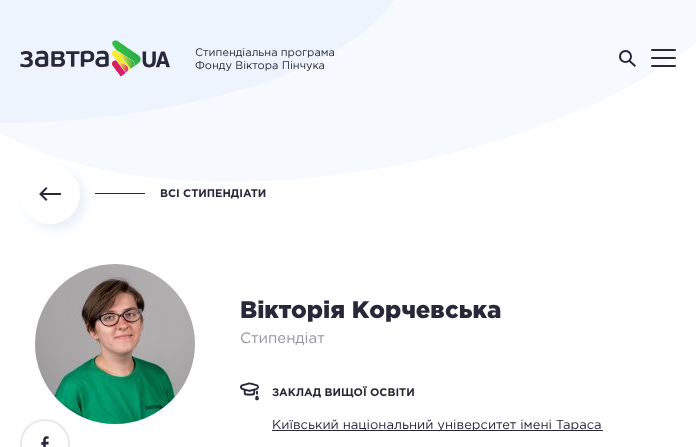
async function draw(canvas) {
  canvas.width = 696;
  canvas.height = 447;
  const ctx = canvas.getContext('2d');
  ctx.miterLimit = 4;
  ctx.fontKerning = 'normal';
  function label(s, x, y, font, color) {
    ctx.font = font;
    ctx.fillStyle = color;
    ctx.fillText(s, x, y);
  }
  function rect(x, y, w, h, color) {
    ctx.fillStyle = color;
    ctx.fillRect(x, y, w, h);
  }
  function roundedRect(x, y, w, h, r, color) {
    ctx.fillStyle = color;
    ctx.beginPath();
    ctx.roundRect(x, y, w, h, r);
    ctx.fill();
  }
  async function image(src, x, y, w, h) {
    const img = new Image();
    img.src = src;
    await img.decode();
    ctx.drawImage(img, x, y, w, h);
  }
  let path;

  rect(0, 0, 696, 447, '#fff');
  ctx.fillStyle = '#f6faff';
  path = new Path2D('M8 137C236 258 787 120 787-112C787-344 271-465 24-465C-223-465-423-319-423-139C-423 41-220 17 8 137Z');
  ctx.fill(path);
  ctx.fillStyle = '#edf4fe';
  path = new Path2D('M4 123C159 123 410 71 410-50C410-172 292-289 138-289C-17-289-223-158-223-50C-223 57-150 123 4 123Z');
  ctx.fill(path);
  await image('assets/img1.png', 20, 40, 150, 37);
  label('Стипендіальна програма', 195, 56, '11px Gotham', '#28283a');
  label('Фонду Віктора Пінчука', 195, 69, '11px Gotham', '#28283a');
  await image('assets/img2.png', 619, 50, 17, 17);
  roundedRect(651, 49, 25, 2, 1, '#28283a');
  roundedRect(651, 57, 25, 2, 1, '#28283a');
  roundedRect(651, 65, 25, 2, 1, '#28283a');
  ctx.fillStyle = '#2670c61a';
  ctx.filter = 'blur(6px)';
  ctx.beginPath();
  ctx.roundRect(26, 170, 60, 60, 30);
  ctx.fill();
  ctx.filter = 'none';
  ctx.fillStyle = '#fff';
  ctx.beginPath();
  ctx.arc(50, 194, 30, 0, 2 * Math.PI);
  ctx.fill();
  await image('assets/img3.png', 39, 187, 22, 14);
  rect(95, 193, 50, 1, '#28283a');
  label('ВСІ СТИПЕНДІАТИ', 160, 197, 'bold 11px Gotham', '#28283a');
  await image('assets/img4.png', 35, 264, 160, 160);
  ctx.beginPath();
  ctx.arc(45, 444, 24, 0, 2 * Math.PI);
  ctx.strokeStyle = '#e9e9eb';
  ctx.lineWidth = 2;
  ctx.stroke();
  await image('assets/img5.png', 41, 436, 8, 11);
  label('Вікторія Корчевська', 240, 318, '900 24px Gotham', '#28283a');
  label('Стипендіат', 240, 343, '15px Gotham', '#94949d');
  await image('assets/img6.png', 240, 382, 19, 19);
  label('ЗАКЛАД ВИЩОЇ ОСВІТИ', 272, 396, 'bold 11px Gotham', '#28283a');
  rect(272, 430, 331, 1, '#28283a');
  label('Київський національний університет імені Тараса', 272, 429, '13px Gotham', '#28283a');
}

draw(document.querySelector('canvas'));
